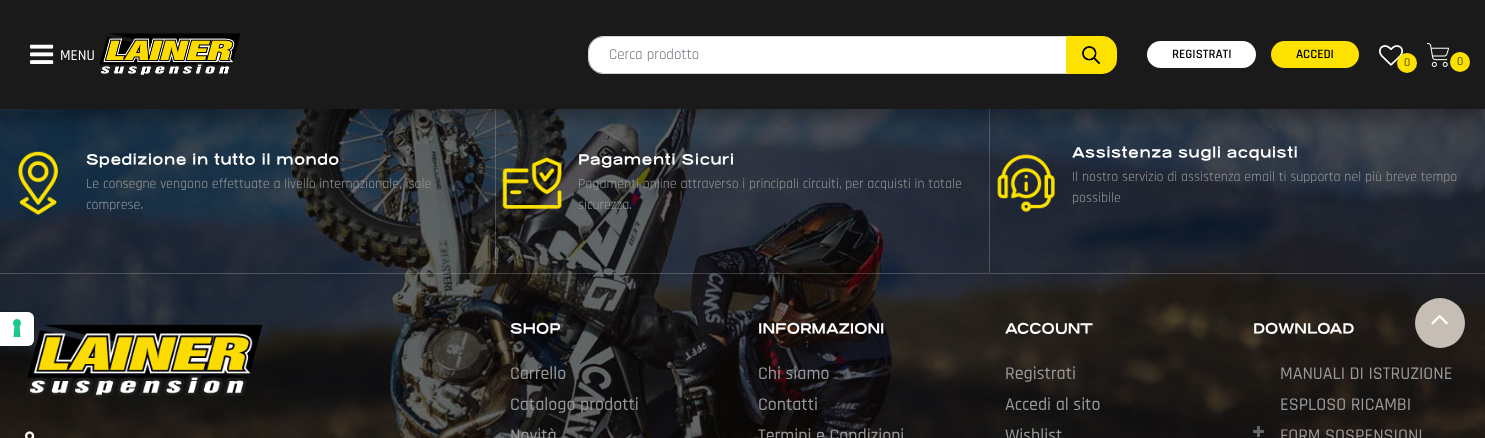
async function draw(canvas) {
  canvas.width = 1485;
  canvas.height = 438;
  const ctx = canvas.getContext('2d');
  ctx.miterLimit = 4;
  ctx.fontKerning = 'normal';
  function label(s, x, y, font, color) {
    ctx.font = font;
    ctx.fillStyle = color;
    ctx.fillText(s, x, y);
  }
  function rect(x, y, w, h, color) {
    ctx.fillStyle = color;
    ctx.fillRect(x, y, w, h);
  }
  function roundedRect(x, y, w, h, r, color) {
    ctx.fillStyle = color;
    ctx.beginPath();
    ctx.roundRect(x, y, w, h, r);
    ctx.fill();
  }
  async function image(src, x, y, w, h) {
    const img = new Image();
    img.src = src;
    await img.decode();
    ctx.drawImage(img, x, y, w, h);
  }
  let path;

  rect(0, 0, 1485, 438, '#fff');
  await image('assets/img7.png', 0, 109, 1485, 329);
  await image('assets/img11.png', 27, 324, 236, 74);
  path = new Path2D('M-.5 311.5H28C31.5 311.5 34.5 314.5 34.5 318V340C34.5 343.5 31.5 346.5 28 346.5H-.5Z');
  ctx.strokeStyle = '#00000026';
  ctx.stroke(path);
  ctx.beginPath();
  ctx.roundRect(0, 312, 34, 34, [0, 6, 6, 0]);
  ctx.fill();
  await image('assets/img1.png', 13, 319, 8, 18);
  ctx.fillStyle = '#ffffff33';
  path = new Path2D('M990 93V274L989 273V93Z');
  ctx.fill(path);
  path = new Path2D('M990 274H495L496 273H989Z');
  ctx.fill(path);
  path = new Path2D('M495 274V93H496V273Z');
  ctx.fill(path);
  ctx.fillStyle = '#0000004d';
  ctx.filter = 'blur(8px)';
  ctx.beginPath();
  ctx.rect(-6, -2, 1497, 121);
  ctx.fill();
  ctx.filter = 'none';
  rect(0, 0, 1485, 109, '#1a1a1a');
  await image('assets/img2.png', 30, 44, 24, 20);
  label('MENU', 60, 60, '500 15px Rajdhani', '#fff');
  await image('assets/img3.png', 99, 33, 142, 42);
  ctx.beginPath();
  ctx.roundRect(589, 37, 477, 36, [14, 0, 0, 14]);
  ctx.fill();
  ctx.fillStyle = '#ced4da';
  path = new Path2D('M603 36H1066V74H603C595 74 588 67 588 59V51C588 43 595 36 603 36ZM603 37H1066V73H603C595 73 589 67 589 59V51C589 43 595 37 603 37Z');
  ctx.fill(path, 'evenodd');
  label('Cerca prodotto', 609, 59, '15px Rajdhani', '#6c757d');
  ctx.fillStyle = '#fde200';
  ctx.beginPath();
  ctx.roundRect(1066, 36, 51, 38, [0, 15, 15, 0]);
  ctx.fill();
  await image('assets/img4.png', 1082, 46, 18, 18);
  roundedRect(1147, 41, 109, 27, 13.5, '#fff');
  label('REGISTRATI', 1172, 58, '600 13px Rajdhani', '#000');
  roundedRect(1271, 41, 88, 27, 13.5, '#fde200');
  label('ACCEDI', 1296, 58, '600 13px Rajdhani', '#000');
  await image('assets/img5.png', 1379, 45, 24, 21);
  ctx.fillStyle = '#fde200';
  ctx.beginPath();
  ctx.arc(1407, 63, 10, 0, 2 * Math.PI);
  ctx.fill();
  label('0', 1404, 66, '12px Rajdhani', '#000');
  await image('assets/img6.png', 1426, 43, 24, 24);
  ctx.fillStyle = '#fde200';
  ctx.beginPath();
  ctx.arc(1460, 62, 10, 0, 2 * Math.PI);
  ctx.fill();
  label('0', 1457, 65, '12px Rajdhani', '#000');
  rect(0, 273, 495, 1, '#ffffff33');
  await image('assets/img8.png', 18, 151, 40, 65);
  ctx.letterSpacing = '1px';
  label('Spedizione in tutto il mondo', 86, 167, 'bold 16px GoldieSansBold', '#fff');
  ctx.letterSpacing = '0px';
  label('Le consegne vengono effettuate a livello internazionale, isole', 86, 188, '14px Rajdhani', '#999');
  label('comprese.', 86, 209, '14px Rajdhani', '#999');
  await image('assets/img9.png', 502, 157, 60, 52);
  ctx.letterSpacing = '1px';
  label('Pagamenti Sicuri', 578, 167, 'bold 16px GoldieSansBold', '#fff');
  ctx.letterSpacing = '0px';
  label('Pagamenti online attraverso i principali circuiti, per acquisti in totale', 578, 188, '14px Rajdhani', '#999');
  label('sicurezza.', 578, 209, '14px Rajdhani', '#999');
  rect(990, 273, 495, 1, '#ffffff33');
  await image('assets/img10.png', 997, 154, 58, 58);
  ctx.letterSpacing = '1px';
  label('Assistenza sugli acquisti', 1072, 160, 'bold 16px GoldieSansBold', '#fff');
  ctx.letterSpacing = '0px';
  label('Il nostro servizio di assistenza email ti supporta nel più breve tempo', 1072, 181, '14px Rajdhani', '#999');
  label('possibile', 1072, 202, '14px Rajdhani', '#999');
  await image('assets/img12.png', 25, 431, 10, 7);
  label('SHOP', 510, 336, 'bold 16px GoldieSansBold', '#fff');
  label('Carrello', 510, 379, '500 18px Rajdhani', '#999');
  label('Catalogo prodotti', 510, 410, '500 18px Rajdhani', '#999');
  label('Novità', 510, 441, '500 18px Rajdhani', '#999');
  label('INFORMAZIONI', 758, 336, 'bold 16px GoldieSansBold', '#fff');
  label('Chi siamo', 758, 379, '500 18px Rajdhani', '#999');
  label('Contatti', 758, 410, '500 18px Rajdhani', '#999');
  label('Termini e Condizioni', 758, 441, '500 18px Rajdhani', '#999');
  label('ACCOUNT', 1005, 336, 'bold 16px GoldieSansBold', '#fff');
  label('Registrati', 1005, 379, '500 18px Rajdhani', '#999');
  label('Accedi al sito', 1005, 410, '500 18px Rajdhani', '#999');
  label('Wishlist', 1005, 441, '500 18px Rajdhani', '#999');
  label('DOWNLOAD', 1253, 336, 'bold 16px GoldieSansBold', '#fff');
  label('MANUALI DI ISTRUZIONE', 1280, 379, '500 18px Rajdhani', '#999');
  label('ESPLOSO RICAMBI', 1280, 410, '500 18px Rajdhani', '#999');
  await image('assets/img13.png', 1253, 426, 11, 11);
  label('FORM SOSPENSIONI', 1280, 441, '500 18px Rajdhani', '#999');
  ctx.fillStyle = '#c6bdb5';
  ctx.beginPath();
  ctx.arc(1440, 323, 25, 0, 2 * Math.PI);
  ctx.fill();
  await image('assets/img14.png', 1431, 314, 17, 11);
}

draw(document.querySelector('canvas'));
